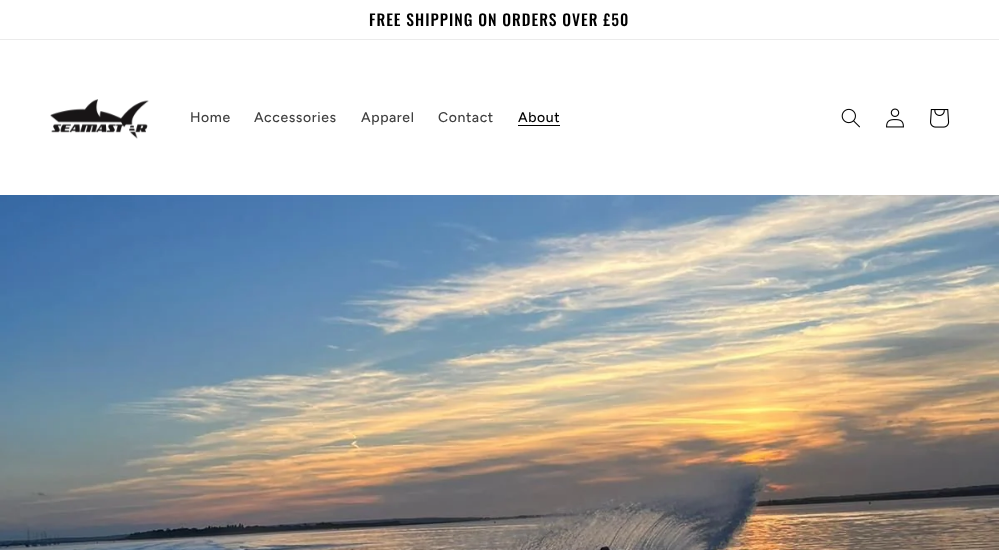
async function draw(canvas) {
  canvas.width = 999;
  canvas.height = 550;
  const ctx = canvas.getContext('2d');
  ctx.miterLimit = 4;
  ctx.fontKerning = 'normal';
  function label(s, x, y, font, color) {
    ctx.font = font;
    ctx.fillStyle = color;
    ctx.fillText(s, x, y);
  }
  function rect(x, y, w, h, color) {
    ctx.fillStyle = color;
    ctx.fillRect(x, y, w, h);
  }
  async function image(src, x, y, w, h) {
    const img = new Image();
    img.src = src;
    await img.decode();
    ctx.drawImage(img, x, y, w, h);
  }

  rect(0, 0, 999, 550, '#fff');
  rect(0, 39, 999, 1, '#ebebeb');
  ctx.letterSpacing = '1px';
  label('FREE SHIPPING ON ORDERS OVER £50', 369, 26, '500 15.6px Oswald', '#000');
  await image('assets/img1.png', 50, 99, 99, 40);
  ctx.letterSpacing = '0.6px';
  label('Home', 190, 122, '500 14px Figtree', '#404040');
  label('Accessories', 254, 122, '500 14px Figtree', '#404040');
  label('Apparel', 361, 122, '500 14px Figtree', '#404040');
  label('Contact', 438, 122, '500 14px Figtree', '#404040');
  label('About', 518, 122, '500 14px Figtree', '#000');
  rect(518, 125, 42, 1, '#000');
  await image('assets/img2.png', 841, 108, 19, 20);
  await image('assets/img3.png', 886, 108, 18, 20);
  await image('assets/img4.png', 930, 109, 20, 19);
  await image('assets/img5.png', 0, 195, 999, 355);
}

draw(document.querySelector('canvas'));
